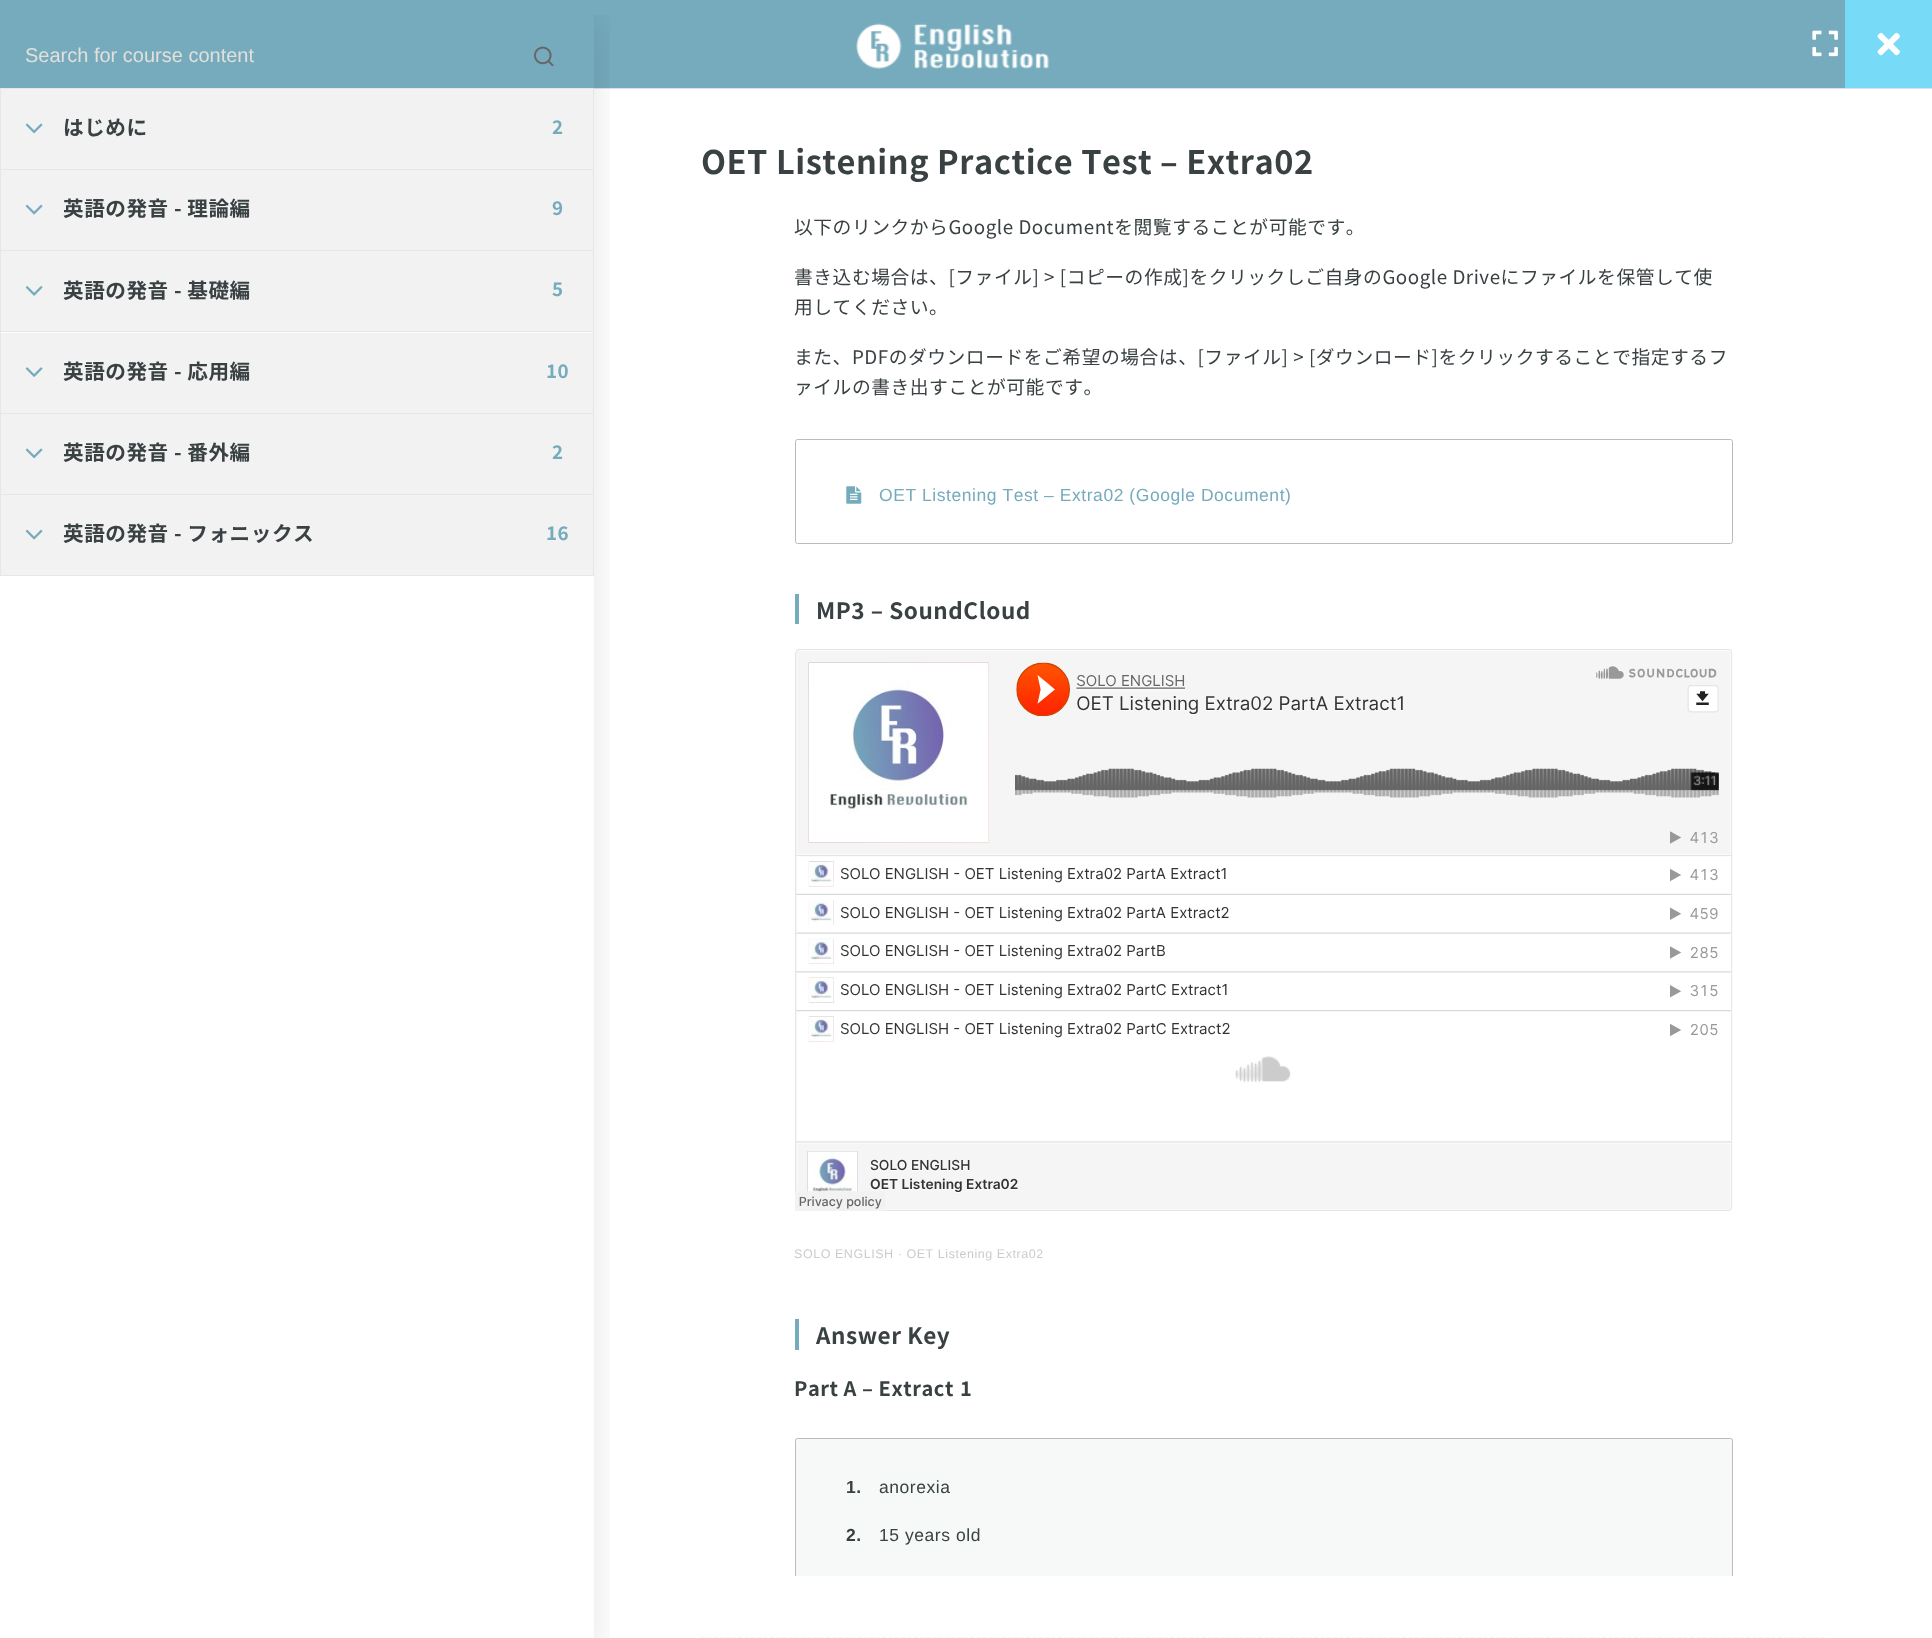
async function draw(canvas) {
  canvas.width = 1932;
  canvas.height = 1638;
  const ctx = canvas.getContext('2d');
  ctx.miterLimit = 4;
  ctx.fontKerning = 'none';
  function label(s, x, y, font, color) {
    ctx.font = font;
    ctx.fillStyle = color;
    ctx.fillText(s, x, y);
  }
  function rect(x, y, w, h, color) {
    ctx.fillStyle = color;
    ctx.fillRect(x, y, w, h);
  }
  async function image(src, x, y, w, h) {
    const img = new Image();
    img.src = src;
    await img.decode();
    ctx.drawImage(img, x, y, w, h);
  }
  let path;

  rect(0, 0, 1932, 1638, '#fff');
  rect(0, 0, 1845, 88, '#75abbc');
  rect(594, 88, 1338, 1, '#d9e0f1');
  await image('assets/img1.png', 856, 23, 194, 46);
  await image('assets/img2.png', 1812, 30, 26, 27);
  rect(1845, 0, 87, 88, '#77daf6');
  await image('assets/img3.png', 1877, 32, 23, 24);
  ctx.save();
  ctx.beginPath();
  ctx.rect(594, 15, 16, 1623);
  ctx.clip();
  ctx.fillStyle = '#0000001a';
  ctx.filter = 'blur(19px)';
  ctx.beginPath();
  ctx.rect(0, 19, 594, 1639);
  ctx.fill();
  ctx.filter = 'none';
  ctx.restore();
  label('Search for course content', 25, 62, '20px Liberation Sans', '#e2e0db');
  await image('assets/img4.png', 534, 46, 20, 21);
  ctx.strokeStyle = '#e6e6e6';
  ctx.strokeRect(0.5, 88.5, 593, 487);
  rect(1, 89, 592, 80, '#f2f2f2');
  await image('assets/img5.png', 25, 123, 18, 11);
  ctx.letterSpacing = '0.55px';
  label('はじめに', 63, 135, 'bold 20.6px Noto Sans JP', '#394143');
  label('2', 552, 134, 'bold 18.75px Noto Sans JP', '#75abbc');
  rect(1, 169, 592, 1, '#e6e6e6');
  rect(1, 170, 592, 80, '#f2f2f2');
  await image('assets/img6.png', 25, 204, 18, 11);
  label('英語の発音 - 理論編', 63, 216, 'bold 20.6px Noto Sans JP', '#394143');
  label('9', 552, 215, 'bold 18.75px Noto Sans JP', '#75abbc');
  rect(1, 250, 592, 1, '#e6e6e6');
  rect(1, 251, 592, 80, '#f2f2f2');
  await image('assets/img7.png', 25, 286, 18, 10);
  label('英語の発音 - 基礎編', 63, 298, 'bold 20.6px Noto Sans JP', '#394143');
  label('5', 552, 296, 'bold 18.75px Noto Sans JP', '#75abbc');
  rect(1, 331, 592, 1, '#e6e6e6');
  rect(1, 333, 592, 80, '#f2f2f2');
  await image('assets/img8.png', 25, 367, 18, 10);
  label('英語の発音 - 応用編', 63, 379, 'bold 20.6px Noto Sans JP', '#394143');
  label('10', 546, 378, 'bold 18.75px Noto Sans JP', '#75abbc');
  rect(1, 413, 592, 1, '#e6e6e6');
  rect(1, 414, 592, 80, '#f2f2f2');
  await image('assets/img5.png', 25, 448, 18, 11);
  label('英語の発音 - 番外編', 63, 460, 'bold 20.6px Noto Sans JP', '#394143');
  label('2', 552, 459, 'bold 18.75px Noto Sans JP', '#75abbc');
  rect(1, 494, 592, 1, '#e6e6e6');
  rect(1, 495, 592, 80, '#f2f2f2');
  await image('assets/img6.png', 25, 529, 18, 11);
  label('英語の発音 - フォニックス', 63, 541, 'bold 20.6px Noto Sans JP', '#394143');
  label('16', 546, 540, 'bold 18.75px Noto Sans JP', '#75abbc');
  label('OET Listening Practice Test', 701, 174, 'bold 32.5px Noto Sans JP', '#394143');
  label('– Extra02', 1160, 174, 'bold 32.5px Noto Sans JP', '#394143');
  label('以下のリンクからGoogle Documentを閲覧することが可能です。', 794, 234, '18.75px Noto Sans JP', '#394143');
  label('書き込む場合は、[ファイル] > [コピーの作成]をクリックしご自身のGoogle Driveにファイルを保管して使', 794, 284, '18.75px Noto Sans JP', '#394143');
  label('用してください。', 794, 314, '18.75px Noto Sans JP', '#394143');
  label('また、PDFのダウンロードをご希望の場合は、[ファイル] > [ダウンロード]をクリックすることで指定するフ', 794, 364, '18.75px Noto Sans JP', '#394143');
  label('ァイルの書き出すことが可能です。', 794, 394, '18.75px Noto Sans JP', '#394143');
  ctx.beginPath();
  ctx.roundRect(795.5, 439.5, 937, 104, 2);
  ctx.strokeStyle = '#bbb';
  ctx.stroke();
  await image('assets/img9.png', 846, 486, 16, 18);
  label('OET Listening Test – Extra02 (Google Document)', 879, 501, '17.5px Liberation Sans', '#75abbc');
  rect(795, 594, 4, 30, '#75abbc');
  label('MP3 – SoundCloud', 816, 619, 'bold 22.5px Noto Sans JP', '#394143');
  await image('assets/img10.png', 795, 649, 938, 562);
  label('SOLO ENGLISH · OET Listening Extra02', 794, 1258, '12.5px Liberation Sans', '#ccc');
  rect(795, 1319, 4, 31, '#75abbc');
  label('Answer Key', 816, 1344, 'bold 22.5px Noto Sans JP', '#394143');
  label('Part A – Extract', 794, 1396, 'bold 20px Noto Sans JP', '#394143');
  label('1', 960, 1396, 'bold 20px Noto Sans JP', '#394143');
  ctx.fillStyle = '#f7f9f9';
  ctx.beginPath();
  ctx.roundRect(795, 1438, 938, 138, [2.5, 2.5, 0, 0]);
  ctx.fill();
  ctx.save();
  ctx.beginPath();
  ctx.rect(594, 88, 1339, 1488);
  ctx.clip();
  ctx.beginPath();
  ctx.roundRect(795.5, 1438.5, 937, 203, 2);
  ctx.stroke();
  ctx.restore();
  label('1.', 846, 1493, 'bold 17.5px Liberation Sans', '#394143');
  label('anorexia', 879, 1493, '17.5px Liberation Sans', '#394143');
  label('2.', 846, 1541, 'bold 17.5px Liberation Sans', '#394143');
  label('15 years old', 879, 1541, '17.5px Liberation Sans', '#394143');
  path = new Path2D('M701 1638H1826');
  ctx.strokeStyle = '#ebebeb';
  ctx.lineWidth = 1.2;
  ctx.setLineDash([3.75, 2.51]);
  ctx.stroke(path);
}

draw(document.querySelector('canvas'));
